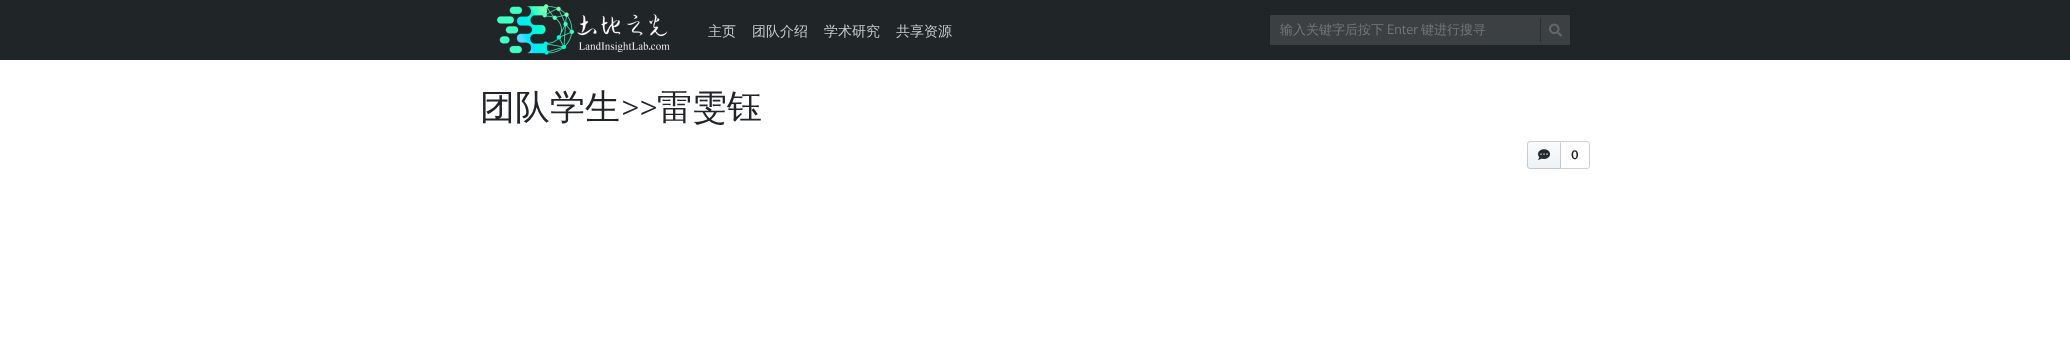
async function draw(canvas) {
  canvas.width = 2070;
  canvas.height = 356;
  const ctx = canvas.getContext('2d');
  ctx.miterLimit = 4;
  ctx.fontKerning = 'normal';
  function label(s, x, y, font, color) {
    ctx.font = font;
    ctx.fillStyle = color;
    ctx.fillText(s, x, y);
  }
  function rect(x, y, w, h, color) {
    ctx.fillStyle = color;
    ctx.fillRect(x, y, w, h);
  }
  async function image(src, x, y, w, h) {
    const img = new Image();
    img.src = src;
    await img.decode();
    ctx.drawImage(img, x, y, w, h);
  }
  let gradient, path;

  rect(0, 0, 2070, 356, '#fff');
  rect(0, 0, 2070, 60, '#202528');
  await image('assets/img1.png', 497, 4, 173, 51);
  label('主页', 708, 36, '500 14px WenQuanYi Zen Hei', '#c7c9c9');
  label('团队介绍', 752, 36, '500 14px WenQuanYi Zen Hei', '#c7c9c9');
  label('学术研究', 824, 36, '500 14px WenQuanYi Zen Hei', '#c7c9c9');
  label('共享资源', 896, 36, '500 14px WenQuanYi Zen Hei', '#c7c9c9');
  rect(1270, 15, 300, 30, '#3c4043');
  label('输入关键字后按下', 1280, 34, '500 13px WenQuanYi Zen Hei', '#757575');
  label('Enter', 1387, 34, '13px Oxygen', '#757575');
  label('键进行搜寻', 1421, 34, '500 13px WenQuanYi Zen Hei', '#757575');
  rect(1540, 18, 1, 24, '#2a2d2f');
  await image('assets/img2.png', 1549, 23, 13, 14);
  label('团队学生', 480, 119, '500 35px WenQuanYi Zen Hei', '#212529');
  label('>>', 621, 119, '300 35px Roboto', '#212529');
  label('雷雯钰', 657, 119, '500 35px WenQuanYi Zen Hei', '#212529');
  gradient = ctx.createLinearGradient(1545, 141, 1545, 170);
  gradient.addColorStop(0, '#fafbfc');
  gradient.addColorStop(0.9, '#eff3f6');
  ctx.fillStyle = gradient;
  ctx.beginPath();
  ctx.roundRect(1527, 141, 34, 28, [3, 0, 0, 3]);
  ctx.fill();
  ctx.beginPath();
  ctx.roundRect(1527.5, 141.5, 33, 27, [2.5, 0, 0, 2.5]);
  ctx.strokeStyle = '#1b1f2333';
  ctx.stroke();
  await image('assets/img3.png', 1538, 149, 12, 11);
  ctx.fillStyle = '#d1d2d3';
  path = new Path2D('M1561 141H1587C1588.5 141 1590 142.5 1590 144V166C1590 167.5 1588.5 169 1587 169H1561ZM1561 142H1587C1588 142 1589 143 1589 144V166C1589 167 1588 168 1587 168H1561Z');
  ctx.fill(path, 'evenodd');
  label('0', 1571, 159, 'bold 12px Oxygen', '#212529');
}

draw(document.querySelector('canvas'));
